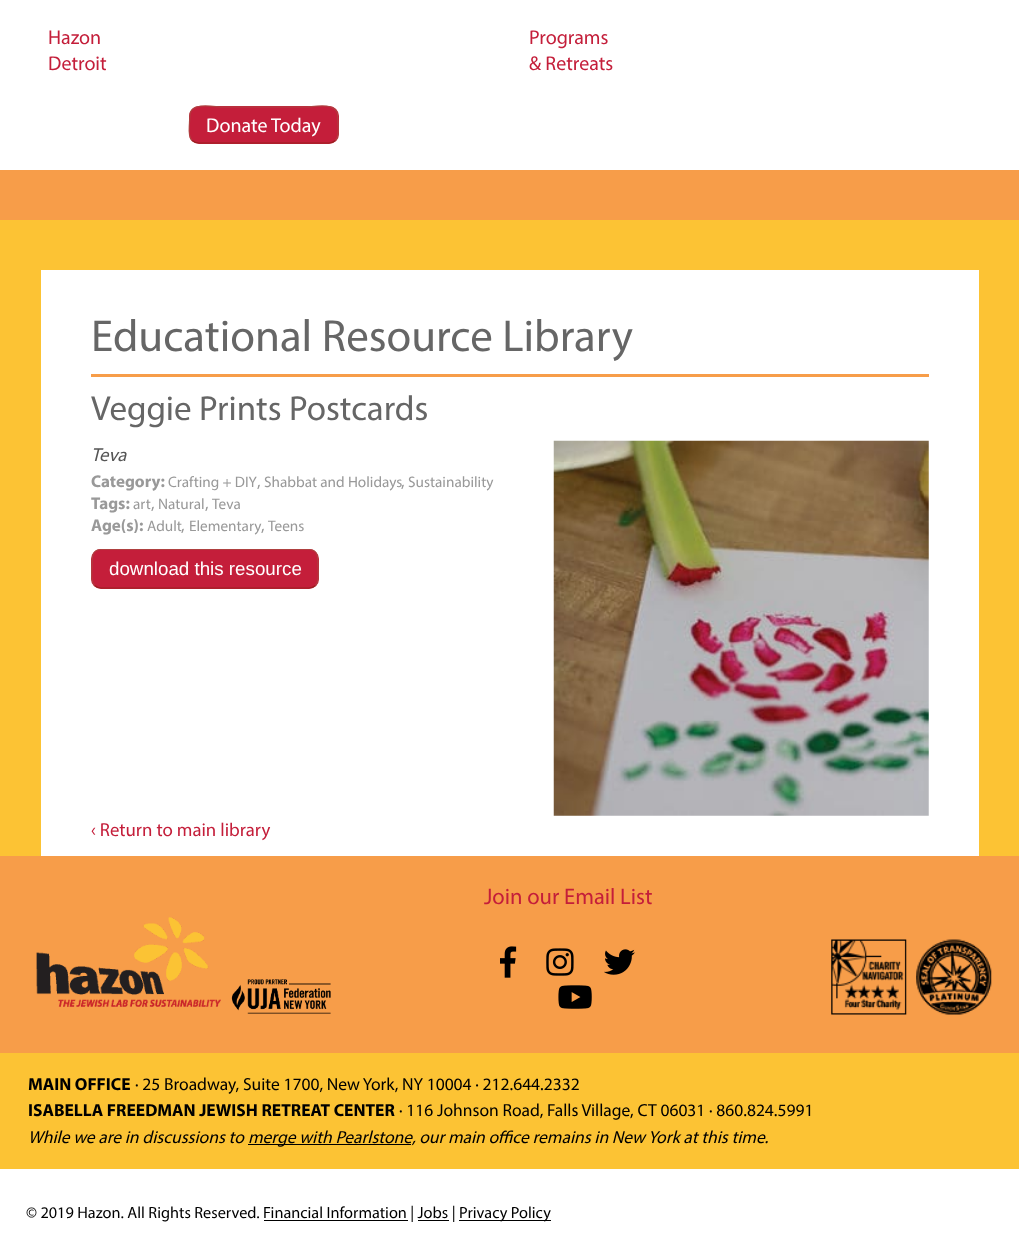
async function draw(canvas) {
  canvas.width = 1019;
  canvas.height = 1242;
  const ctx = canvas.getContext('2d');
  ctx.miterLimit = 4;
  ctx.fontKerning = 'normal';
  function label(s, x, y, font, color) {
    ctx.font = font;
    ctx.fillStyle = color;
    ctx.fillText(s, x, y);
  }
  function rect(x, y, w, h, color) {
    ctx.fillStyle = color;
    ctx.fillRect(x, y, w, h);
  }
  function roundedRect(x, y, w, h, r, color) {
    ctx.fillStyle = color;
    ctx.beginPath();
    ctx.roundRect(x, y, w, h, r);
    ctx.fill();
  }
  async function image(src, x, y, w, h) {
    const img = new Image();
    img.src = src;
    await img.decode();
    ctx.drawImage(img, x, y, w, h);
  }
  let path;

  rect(0, 0, 1019, 1242, '#fcc334');
  rect(0, 0, 1019, 170, '#fff');
  label('Hazon', 48, 44, '20px Myriad', '#c41e3a');
  label('Detroit', 48, 70, '20px Myriad', '#c41e3a');
  label('Programs', 529, 44, '20px Myriad', '#c41e3a');
  label('& Retreats', 529, 70, '20px Myriad', '#c41e3a');
  roundedRect(189, 106, 150, 38, 10, '#c41e3a');
  path = new Path2D('M335.5 140.5C333.5 142 331 143 329 143H199C196.5 143 194 142 192 140.5');
  ctx.strokeStyle = '#9a2020';
  ctx.lineWidth = 1.2;
  ctx.stroke(path);
  path = new Path2D('M192 140.5C187.5 136 189.5 127.5 189.5 122L190 113.5C193 102 215 107 220.5 107H307C312.5 107 334.5 102 337.5 113.5L338 122C338 127.5 340 136 335.5 140.5');
  ctx.strokeStyle = '#af4040';
  ctx.stroke(path);
  label('Donate Today', 206, 132, '20px Myriad', '#fff');
  rect(0, 170, 1019, 50, '#f79d49');
  rect(41, 270, 938, 586, '#fff');
  label('Educational Resource Library', 91, 351, '45px Myriad', '#666');
  rect(91, 374, 838, 3, '#f79d49');
  label('Veggie Prints Postcards', 91, 420, '35px Myriad', '#666');
  label('Teva', 91, 461, 'italic 18.75px Myriad', '#555');
  label('Category:', 91, 487, 'bold 17px Myriad', '#999');
  label('Crafting + DIY', 168, 487, '15.25px Myriad', '#999');
  label(',', 257, 487, '17px Myriad', '#999');
  label('Shabbat and Holidays', 264, 487, '15.25px Myriad', '#999');
  label(',', 401, 487, '17px Myriad', '#999');
  label('Sustainability', 408, 487, '15.25px Myriad', '#999');
  label('Tags:', 91, 509, 'bold 17px Myriad', '#999');
  label('art', 133, 509, '15.25px Myriad', '#999');
  label(',', 151, 509, '17px Myriad', '#999');
  label('Natural', 158, 509, '15.25px Myriad', '#999');
  label(',', 205, 509, '17px Myriad', '#999');
  label('Teva', 212, 509, '15.25px Myriad', '#999');
  label('Age(s):', 91, 531, 'bold 17px Myriad', '#999');
  label('Adult', 147, 531, '15.25px Myriad', '#999');
  label(',', 181, 531, '17px Myriad', '#999');
  label('Elementary', 189, 531, '15.25px Myriad', '#999');
  label(',', 261, 531, '17px Myriad', '#999');
  label('Teens', 268, 531, '15.25px Myriad', '#999');
  await image('assets/img1.png', 553, 440, 376, 376);
  roundedRect(91, 549, 228, 40, 10, '#c41e3a');
  path = new Path2D('M315.5 585.5C313.5 587 311 588 309 588H101C99 588 96.5 587 94.5 585.5');
  ctx.strokeStyle = '#9a2020';
  ctx.stroke(path);
  path = new Path2D('M94.5 585.5C90 581 92 571 92 565.5C92 558.5 91.5 549.5 101 549.5H309C318.5 549.5 318 558.5 318 565.5C318 571 320 581 315.5 585.5');
  ctx.strokeStyle = '#af4040';
  ctx.stroke(path);
  label('download this resource', 109, 575, '18.75px Liberation Sans', '#fff');
  label('‹ Return to main library', 91, 836, '18.75px Myriad', '#c41e3a');
  rect(0, 856, 1019, 197, '#f79d49');
  label('Join our Email List', 484, 904, '22.5px Myriad', '#c41e3a');
  await image('assets/img2.png', 500, 946, 17, 32);
  await image('assets/img3.png', 546, 948, 28, 28);
  await image('assets/img4.png', 604, 949, 31, 26);
  await image('assets/img5.png', 558, 985, 34, 24);
  await image('assets/img6.png', 36, 917, 185, 90);
  await image('assets/img7.png', 231, 979, 100, 35);
  await image('assets/img8.png', 831, 939, 76, 76);
  await image('assets/img9.png', 916, 939, 76, 76);
  label('MAIN OFFICE', 28, 1090, 'bold 17.5px Myriad', '#000');
  label('· 25 Broadway, Suite 1700, New York, NY 10004 · 212.644.2332', 135, 1090, '17.5px Myriad', '#000');
  label('ISABELLA FREEDMAN JEWISH RETREAT CENTER', 28, 1116, 'bold 17.5px Myriad', '#000');
  label('· 116 Johnson Road, Falls Village, CT 06031 · 860.824.5991', 399, 1116, '17.5px Myriad', '#000');
  label('While we are in discussions to', 28, 1143, 'italic 17.5px Myriad', '#000');
  rect(248, 1144, 163, 1, '#000');
  label('merge with Pearlstone, our main office remains in New York at this time.', 248, 1143, 'italic 17.5px Myriad', '#000');
  rect(0, 1169, 1019, 73, '#fff');
  label('© 2019 Hazon. All Rights Reserved. Financial Information | Jobs |', 26, 1218, '16.25px Myriad', '#000');
  rect(459, 1220, 92, 1, '#000');
  label('Privacy Policy', 459, 1218, '16.25px Myriad', '#000');
  rect(264, 1220, 144, 1, '#000');
  rect(418, 1220, 31, 1, '#000');
}

draw(document.querySelector('canvas'));
